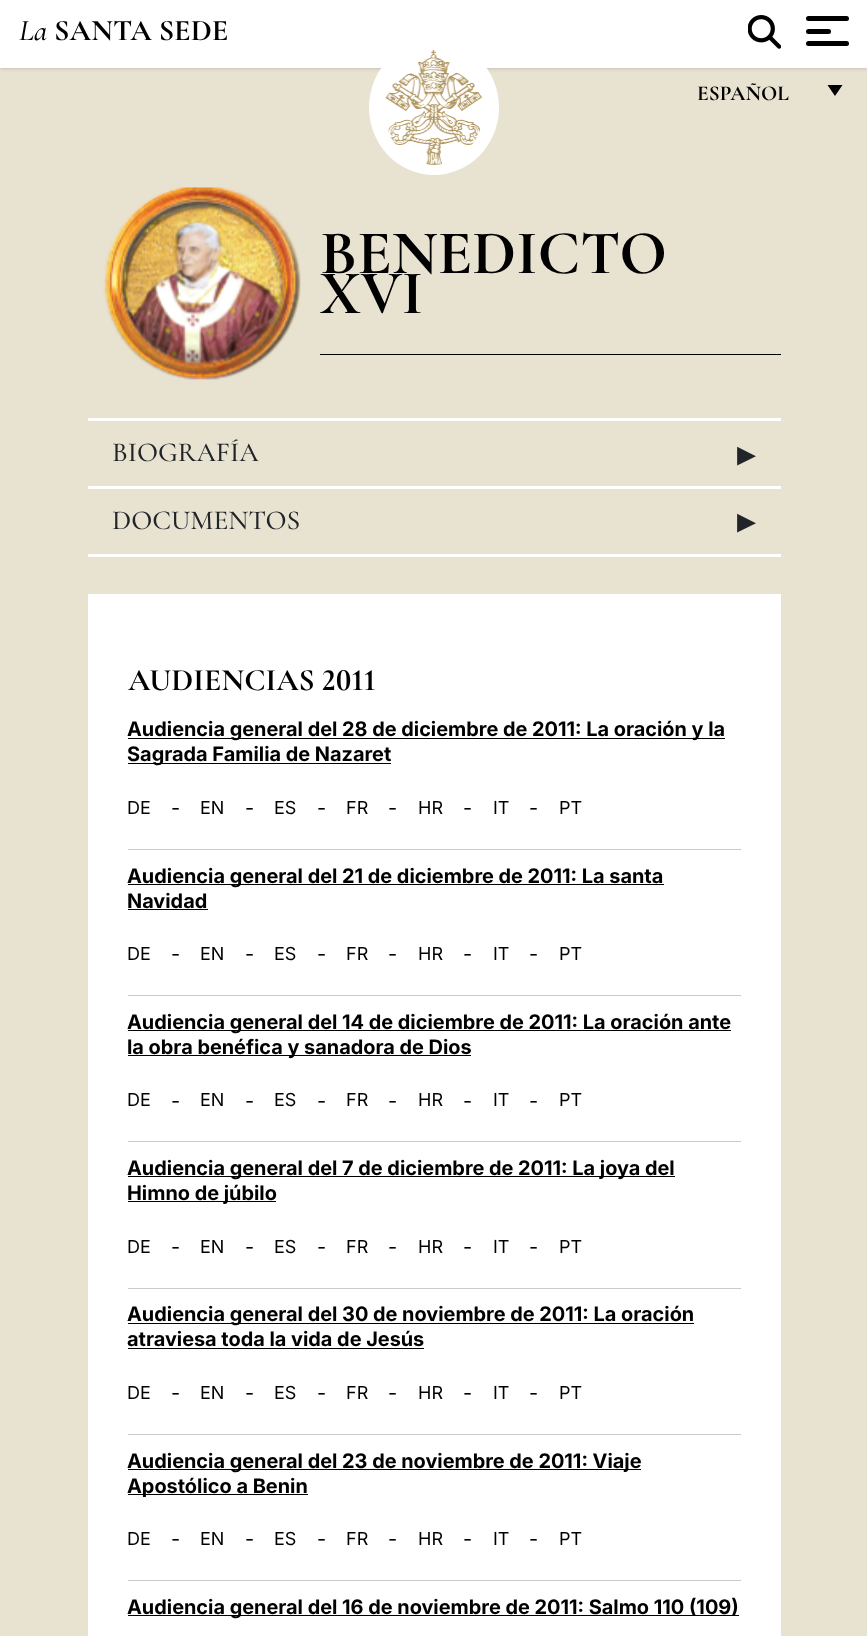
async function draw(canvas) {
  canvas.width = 867;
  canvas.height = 1636;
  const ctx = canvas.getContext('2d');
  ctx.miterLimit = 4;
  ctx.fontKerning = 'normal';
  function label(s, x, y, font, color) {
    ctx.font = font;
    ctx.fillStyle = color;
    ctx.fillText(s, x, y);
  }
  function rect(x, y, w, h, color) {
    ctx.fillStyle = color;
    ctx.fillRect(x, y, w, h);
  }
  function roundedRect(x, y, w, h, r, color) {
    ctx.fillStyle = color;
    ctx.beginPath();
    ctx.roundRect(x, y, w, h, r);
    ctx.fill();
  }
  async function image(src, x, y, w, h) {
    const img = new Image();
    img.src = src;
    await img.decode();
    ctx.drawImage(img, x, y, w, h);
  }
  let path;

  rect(0, 0, 867, 1636, '#e8e2d1');
  ctx.fillStyle = '#4949494f';
  ctx.filter = 'blur(2px)';
  ctx.beginPath();
  ctx.rect(0, 0, 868, 68);
  ctx.fill();
  ctx.filter = 'none';
  rect(0, 0, 867, 68, '#fff');
  label('La', 19, 40, 'italic 500 30px Cormorant Garamond', '#000');
  label('SANTA SEDE', 54, 40, 'bold 30px Cormorant Garamond', '#000');
  ctx.fillStyle = '#fff';
  ctx.beginPath();
  ctx.ellipse(434, 107.5, 65, 67.5, 0, 0, 2 * Math.PI);
  ctx.fill();
  await image('assets/img1.png', 385, 50, 97, 115);
  await image('assets/img2.png', 748, 15, 33, 34);
  roundedRect(806, 16, 43, 5, 2.5, '#000');
  roundedRect(806, 29, 25, 5, 2.5, '#000');
  roundedRect(806, 41, 43, 5, 2.5, '#000');
  label('ESPAÑOL', 697, 100, 'bold 21.25px Cormorant Garamond', '#000');
  path = new Path2D('M827.5 85H842.5L835 96Z');
  ctx.fill(path);
  await image('assets/img3.png', 103, 187, 198, 193);
  label('BENEDICTO', 320, 273, 'bold 62.5px Cormorant Garamond', '#000');
  label('XVI', 320, 313, 'bold 62.5px Cormorant Garamond', '#000');
  rect(320, 354, 461, 1, '#000');
  rect(88, 418, 693, 3, '#fff');
  rect(88, 486, 693, 3, '#fff');
  label('BIOGRAFÍA', 112, 461, '500 27.5px Cormorant Garamond', '#212529');
  label('▸', 737, 466, '38px DejaVu Sans', '#212529');
  rect(88, 554, 693, 3, '#fff');
  label('DOCUMENTOS', 112, 529, '500 27.5px Cormorant Garamond', '#212529');
  label('▸', 737, 533, '38px DejaVu Sans', '#212529');
  rect(88, 594, 693, 1042, '#fff');
  label('AUDIENCIAS 2011', 128, 690, 'bold 31.25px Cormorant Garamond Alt', '#000');
  rect(128, 849, 613, 1, '#cacaca');
  rect(128, 738, 597, 1, '#000');
  label('Audiencia general del 28 de diciembre de 2011: La oración y la', 127, 736, 'bold 20px Inter', '#000');
  rect(128, 763, 263, 1, '#000');
  label('Sagrada Familia de Nazaret', 127, 761, 'bold 20px Inter', '#000');
  label('DE', 127, 814, '18px Inter', '#000');
  label('-', 171, 815, '20px "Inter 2"', '#000');
  label('EN', 200, 814, '18px Inter', '#000');
  label('-', 245, 815, '20px "Inter 2"', '#000');
  label('ES', 274, 814, '18px Inter', '#000');
  label('-', 317, 815, '20px "Inter 2"', '#000');
  label('FR', 346, 814, '18px Inter', '#000');
  label('-', 388, 815, '20px "Inter 2"', '#000');
  label('HR', 418, 814, '18px Inter', '#000');
  label('-', 463, 815, '20px "Inter 2"', '#000');
  label('IT', 493, 814, '18px Inter', '#000');
  label('-', 529, 815, '20px "Inter 2"', '#000');
  label('PT', 559, 814, '18px Inter', '#000');
  rect(128, 995, 613, 1, '#cacaca');
  rect(128, 884, 536, 1, '#000');
  label('Audiencia general del 21 de diciembre de 2011: La santa', 127, 883, 'bold 20px Inter', '#000');
  label('Navidad', 127, 908, 'bold 20px Inter', '#000');
  rect(128, 909, 80, 1, '#000');
  label('DE', 127, 960, '18px Inter', '#000');
  label('-', 171, 961, '20px "Inter 2"', '#000');
  label('EN', 200, 960, '18px Inter', '#000');
  label('-', 245, 961, '20px "Inter 2"', '#000');
  label('ES', 274, 960, '18px Inter', '#000');
  label('-', 317, 961, '20px "Inter 2"', '#000');
  label('FR', 346, 960, '18px Inter', '#000');
  label('-', 388, 961, '20px "Inter 2"', '#000');
  label('HR', 418, 960, '18px Inter', '#000');
  label('-', 463, 961, '20px "Inter 2"', '#000');
  label('IT', 493, 960, '18px Inter', '#000');
  label('-', 529, 961, '20px "Inter 2"', '#000');
  label('PT', 559, 960, '18px Inter', '#000');
  rect(128, 1141, 613, 1, '#cacaca');
  rect(128, 1030, 603, 1, '#000');
  label('Audiencia general del 14 de diciembre de 2011: La oración ante', 127, 1029, 'bold 20px Inter', '#000');
  rect(128, 1055, 343, 1, '#000');
  label('la obra benéfica y sanadora de Dios', 127, 1054, 'bold 20px Inter', '#000');
  label('DE', 127, 1106, '18px Inter', '#000');
  label('-', 171, 1108, '20px "Inter 2"', '#000');
  label('EN', 200, 1106, '18px Inter', '#000');
  label('-', 245, 1108, '20px "Inter 2"', '#000');
  label('ES', 274, 1106, '18px Inter', '#000');
  label('-', 317, 1108, '20px "Inter 2"', '#000');
  label('FR', 346, 1106, '18px Inter', '#000');
  label('-', 388, 1108, '20px "Inter 2"', '#000');
  label('HR', 418, 1106, '18px Inter', '#000');
  label('-', 463, 1108, '20px "Inter 2"', '#000');
  label('IT', 493, 1106, '18px Inter', '#000');
  label('-', 529, 1108, '20px "Inter 2"', '#000');
  label('PT', 559, 1106, '18px Inter', '#000');
  rect(128, 1288, 613, 1, '#cacaca');
  rect(128, 1176, 547, 1, '#000');
  label('Audiencia general del 7 de diciembre de 2011: La joya del', 127, 1175, 'bold 20px Inter', '#000');
  rect(128, 1201, 148, 1, '#000');
  label('Himno de júbilo', 127, 1200, 'bold 20px Inter', '#000');
  label('DE', 127, 1253, '18px Inter', '#000');
  label('-', 171, 1254, '20px "Inter 2"', '#000');
  label('EN', 200, 1253, '18px Inter', '#000');
  label('-', 245, 1254, '20px "Inter 2"', '#000');
  label('ES', 274, 1253, '18px Inter', '#000');
  label('-', 317, 1254, '20px "Inter 2"', '#000');
  label('FR', 346, 1253, '18px Inter', '#000');
  label('-', 388, 1254, '20px "Inter 2"', '#000');
  label('HR', 418, 1253, '18px Inter', '#000');
  label('-', 463, 1254, '20px "Inter 2"', '#000');
  label('IT', 493, 1253, '18px Inter', '#000');
  label('-', 529, 1254, '20px "Inter 2"', '#000');
  label('PT', 559, 1253, '18px Inter', '#000');
  rect(128, 1434, 613, 1, '#cacaca');
  rect(128, 1323, 566, 1, '#000');
  label('Audiencia general del 30 de noviembre de 2011: La oración', 127, 1321, 'bold 20px Inter', '#000');
  label('atraviesa toda la vida de Jesús', 127, 1346, 'bold 20px Inter', '#000');
  rect(128, 1348, 296, 1, '#000');
  label('DE', 127, 1399, '18px Inter', '#000');
  label('-', 171, 1400, '20px "Inter 2"', '#000');
  label('EN', 200, 1399, '18px Inter', '#000');
  label('-', 245, 1400, '20px "Inter 2"', '#000');
  label('ES', 274, 1399, '18px Inter', '#000');
  label('-', 317, 1400, '20px "Inter 2"', '#000');
  label('FR', 346, 1399, '18px Inter', '#000');
  label('-', 388, 1400, '20px "Inter 2"', '#000');
  label('HR', 418, 1399, '18px Inter', '#000');
  label('-', 463, 1400, '20px "Inter 2"', '#000');
  label('IT', 493, 1399, '18px Inter', '#000');
  label('-', 529, 1400, '20px "Inter 2"', '#000');
  label('PT', 559, 1399, '18px Inter', '#000');
  rect(128, 1580, 613, 1, '#cacaca');
  rect(128, 1469, 513, 1, '#000');
  label('Audiencia general del 23 de noviembre de 2011: Viaje', 127, 1468, 'bold 20px Inter', '#000');
  rect(128, 1494, 180, 1, '#000');
  label('Apostólico a Benin', 127, 1493, 'bold 20px Inter', '#000');
  label('DE', 127, 1545, '18px Inter', '#000');
  label('-', 171, 1546, '20px "Inter 2"', '#000');
  label('EN', 200, 1545, '18px Inter', '#000');
  label('-', 245, 1546, '20px "Inter 2"', '#000');
  label('ES', 274, 1545, '18px Inter', '#000');
  label('-', 317, 1546, '20px "Inter 2"', '#000');
  label('FR', 346, 1545, '18px Inter', '#000');
  label('-', 388, 1546, '20px "Inter 2"', '#000');
  label('HR', 418, 1545, '18px Inter', '#000');
  label('-', 463, 1546, '20px "Inter 2"', '#000');
  label('IT', 493, 1545, '18px Inter', '#000');
  label('-', 529, 1546, '20px "Inter 2"', '#000');
  label('PT', 559, 1545, '18px Inter', '#000');
  rect(128, 1615, 611, 1, '#000');
  label('Audiencia general del 16 de noviembre de 2011: Salmo 110 (109)', 127, 1614, 'bold 20px Inter', '#000');
}

draw(document.querySelector('canvas'));
